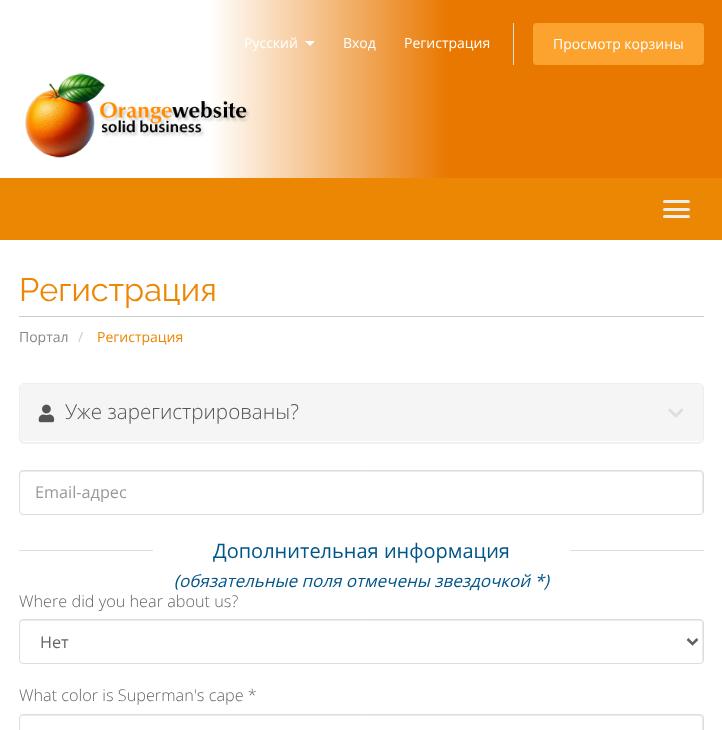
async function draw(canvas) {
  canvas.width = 722;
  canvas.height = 730;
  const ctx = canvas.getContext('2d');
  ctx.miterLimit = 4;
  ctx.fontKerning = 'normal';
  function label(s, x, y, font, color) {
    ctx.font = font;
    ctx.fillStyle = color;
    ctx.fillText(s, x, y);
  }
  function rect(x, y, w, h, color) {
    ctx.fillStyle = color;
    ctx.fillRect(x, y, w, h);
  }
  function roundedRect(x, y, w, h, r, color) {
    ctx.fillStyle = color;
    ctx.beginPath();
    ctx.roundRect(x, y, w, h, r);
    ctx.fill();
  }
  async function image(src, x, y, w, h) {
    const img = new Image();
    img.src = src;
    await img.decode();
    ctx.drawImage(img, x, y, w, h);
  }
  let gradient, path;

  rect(0, 0, 722, 730, '#fff');
  gradient = ctx.createLinearGradient(0, 89, 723, 89);
  gradient.addColorStop(0.29, '#fff');
  gradient.addColorStop(0.62, '#e97800');
  ctx.fillStyle = gradient;
  ctx.fillRect(212, 0, 510, 178);
  label('Русский', 244, 48, '14px Open Sans', '#fff');
  path = new Path2D('M305 41H315L310 46Z');
  ctx.fill(path);
  label('Вход', 343, 48, '14px Open Sans', '#fff');
  label('Регистрация', 404, 48, '14px Open Sans', '#fff');
  rect(513, 23, 1, 42, '#ddd');
  roundedRect(533, 23, 171, 42, 4, '#fca32f');
  label('Просмотр корзины', 553, 49, '14px Open Sans', '#fff');
  await image('assets/img1.png', 25, 73, 225, 85);
  rect(0, 178, 722, 62, '#ec8704');
  roundedRect(663, 200, 27, 3, 1.5, '#eee');
  roundedRect(663, 208, 27, 3, 1.5, '#eee');
  roundedRect(663, 215, 27, 3, 1.5, '#eee');
  rect(19, 316, 685, 1, '#ccc');
  label('Регистрация', 19, 301, '32.5px Raleway', '#ec8704');
  label('Портал', 19, 342, '14px Open Sans', '#888');
  label('/', 78, 342, '14px Open Sans', '#ccc');
  label('Регистрация', 97, 342, '14px Open Sans', '#ec8704');
  ctx.fillStyle = '#0000000d';
  ctx.filter = 'blur(0.5px)';
  ctx.beginPath();
  ctx.roundRect(19, 384, 685, 60, 5);
  ctx.fill();
  ctx.filter = 'none';
  ctx.fillStyle = '#fff';
  ctx.beginPath();
  ctx.roundRect(19.5, 383.5, 684, 59, 4.5);
  ctx.fill();
  ctx.strokeStyle = '#eee';
  ctx.stroke();
  ctx.fillStyle = '#f5f5f5';
  ctx.beginPath();
  ctx.roundRect(20, 384, 683, 57, [4, 4, 0, 0]);
  ctx.fill();
  await image('assets/img2.png', 38, 404, 17, 19);
  label('Уже зарегистрированы?', 65, 419, '300 20.6px Open Sans', '#555');
  await image('assets/img3.png', 668, 408, 15, 10);
  ctx.fillStyle = '#ececec';
  path = new Path2D('M22 472H700C701 472 702 474 702 475V514C702 513 703 512 703 512V474C703 472 702 471 700 471H22C21 471 20 472 20 474V475C20 474 21 472 22 472Z');
  ctx.fill(path);
  ctx.beginPath();
  ctx.roundRect(19.5, 470.5, 684, 44, 3.5);
  ctx.strokeStyle = '#ddd';
  ctx.stroke();
  label('Email-адрес', 35, 498, '16.25px Open Sans', '#999');
  rect(19, 550, 685, 1, '#ddd');
  rect(153, 550, 417, 1, '#fff');
  label('Дополнительная информация', 213, 558, '20px Open Sans', '#058');
  label('(обязательные поля отмечены звездочкой *)', 174, 587, 'italic 17px Open Sans', '#058');
  label('Where did you hear about us?', 19, 607, '300 16.25px Open Sans', '#666');
  ctx.fillStyle = '#ececec';
  path = new Path2D('M22 621H700C701 621 702 622 702 624V663C702 662 703 661 703 660V622C703 621 702 620 700 620H22C21 620 20 621 20 622V624C20 622 21 621 22 621Z');
  ctx.fill(path);
  ctx.beginPath();
  ctx.roundRect(19.5, 619.5, 684, 44, 3.5);
  ctx.stroke();
  path = new Path2D('M687.5 639L692.5 644L697.5 639');
  ctx.strokeStyle = '#626262';
  ctx.lineWidth = 2.5;
  ctx.stroke(path);
  label('Нет', 40, 648, '16.25px Open Sans', '#666');
  label('What color is Superman\'s cape *', 19, 701, '300 16.25px Open Sans', '#666');
  ctx.fillStyle = '#ececec';
  path = new Path2D('M22 716H700C701 716 702 717 702 719V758C702 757 703 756 703 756V718C703 716 702 715 700 715H22C21 715 20 716 20 718V719C20 717 21 716 22 716Z');
  ctx.fill(path);
  ctx.beginPath();
  ctx.roundRect(19.5, 714.5, 684, 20, 3.5);
  ctx.strokeStyle = '#ddd';
  ctx.lineWidth = 1;
  ctx.stroke();
}

draw(document.querySelector('canvas'));
